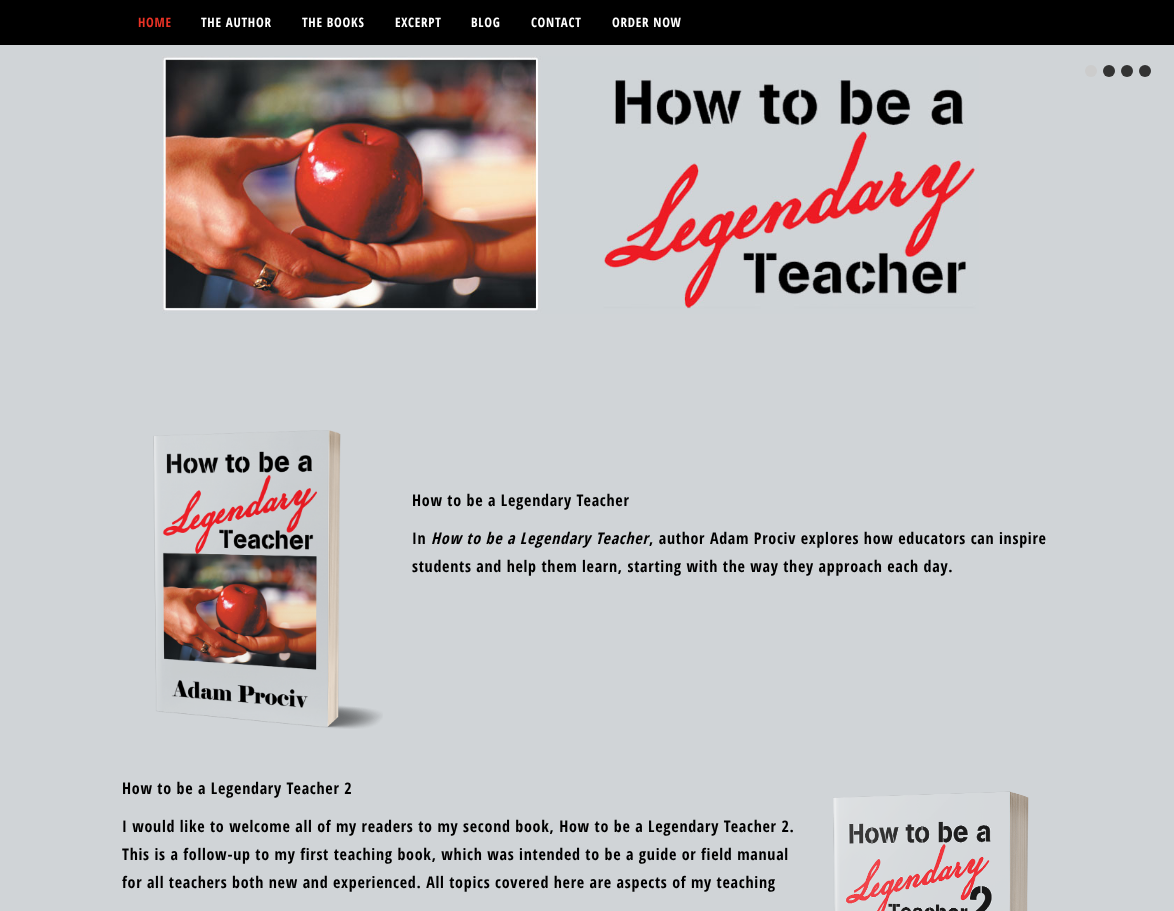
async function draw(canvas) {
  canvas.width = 1174;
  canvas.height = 911;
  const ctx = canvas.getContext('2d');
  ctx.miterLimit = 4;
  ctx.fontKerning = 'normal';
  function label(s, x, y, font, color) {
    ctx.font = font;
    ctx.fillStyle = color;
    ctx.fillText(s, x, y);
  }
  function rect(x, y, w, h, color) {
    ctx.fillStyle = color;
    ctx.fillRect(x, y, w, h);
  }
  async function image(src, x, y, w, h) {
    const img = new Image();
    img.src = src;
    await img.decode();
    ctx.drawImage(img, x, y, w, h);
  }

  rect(0, 0, 1174, 911, '#d0d4d7');
  rect(0, 0, 1174, 45, '#000');
  ctx.letterSpacing = '0.75px';
  label('HOME', 138, 27, 'bold 13px Open Sans Condensed', '#e93225');
  label('THE AUTHOR', 201, 27, 'bold 13px Open Sans Condensed', '#fff');
  label('THE BOOKS', 302, 27, 'bold 13px Open Sans Condensed', '#fff');
  label('EXCERPT', 395, 27, 'bold 13px Open Sans Condensed', '#fff');
  label('BLOG', 471, 27, 'bold 13px Open Sans Condensed', '#fff');
  label('CONTACT', 531, 27, 'bold 13px Open Sans Condensed', '#fff');
  label('ORDER NOW', 612, 27, 'bold 13px Open Sans Condensed', '#fff');
  await image('assets/img1.png', 162, 56, 817, 258);
  ctx.fillStyle = '#ccc';
  ctx.beginPath();
  ctx.arc(1091, 71, 6, 0, 2 * Math.PI);
  ctx.fill();
  ctx.fillStyle = '#333';
  ctx.beginPath();
  ctx.arc(1109, 71, 6, 0, 2 * Math.PI);
  ctx.fill();
  ctx.beginPath();
  ctx.arc(1127, 71, 6, 0, 2 * Math.PI);
  ctx.fill();
  ctx.beginPath();
  ctx.arc(1145, 71, 6, 0, 2 * Math.PI);
  ctx.fill();
  await image('assets/img2.png', 153, 430, 230, 299);
  ctx.letterSpacing = '0.72px';
  label('How to be a Legendary Teacher', 412, 506, 'bold 16px Open Sans Condensed', '#000');
  label('In', 412, 544, 'bold 16px Open Sans Condensed', '#000');
  label('How to be a Legendary Teacher', 431, 544, 'italic bold 16px Open Sans Condensed', '#000');
  label(', author Adam Prociv explores how educators can inspire', 649, 544, 'bold 16px Open Sans Condensed', '#000');
  label('students and help them learn, starting with the way they approach each day.', 412, 572, 'bold 16px Open Sans Condensed', '#000');
  label('How to be a Legendary Teacher 2', 122, 794, 'bold 16px Open Sans Condensed', '#000');
  await image('assets/img3.png', 833, 791, 196, 120);
  label('I would like to welcome all of my readers to my second book, How to be a Legendary Teacher 2.', 122, 832, 'bold 16px Open Sans Condensed', '#000');
  label('This is a follow-up to my first teaching book, which was intended to be a guide or field manual', 122, 860, 'bold 16px Open Sans Condensed', '#000');
  label('for all teachers both new and experienced. All topics covered here are aspects of my teaching', 122, 888, 'bold 16px Open Sans Condensed', '#000');
}

draw(document.querySelector('canvas'));
